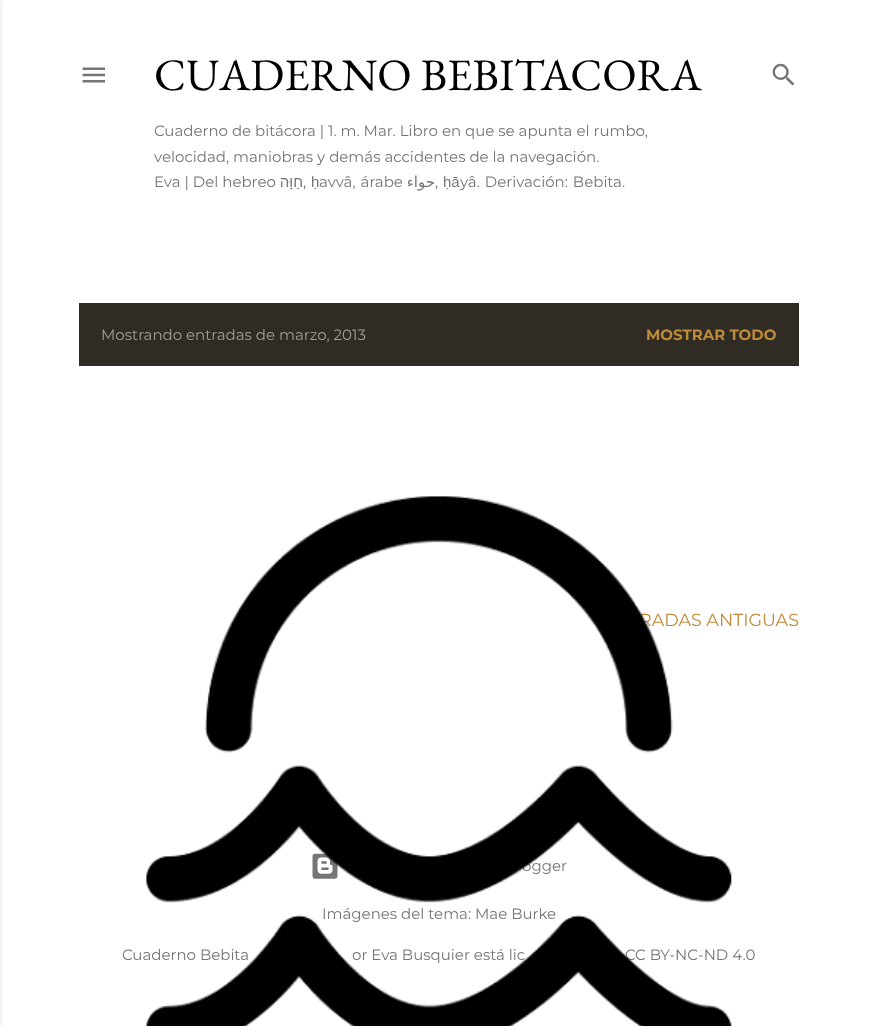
async function draw(canvas) {
  canvas.width = 877;
  canvas.height = 1026;
  const ctx = canvas.getContext('2d');
  ctx.miterLimit = 4;
  ctx.fontKerning = 'normal';
  function label(s, x, y, font, color) {
    ctx.font = font;
    ctx.fillStyle = color;
    ctx.fillText(s, x, y);
  }
  function rect(x, y, w, h, color) {
    ctx.fillStyle = color;
    ctx.fillRect(x, y, w, h);
  }
  async function image(src, x, y, w, h) {
    const img = new Image();
    img.src = src;
    await img.decode();
    ctx.drawImage(img, x, y, w, h);
  }

  rect(0, 0, 877, 1026, '#fff');
  ctx.fillStyle = '#0000001a';
  ctx.filter = 'blur(2px)';
  ctx.beginPath();
  ctx.rect(-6, 0, 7, 1026);
  ctx.fill();
  ctx.filter = 'none';
  await image('assets/img1.png', 82, 67, 23, 16);
  label('CUADERNO BEBITACORA', 154, 90, '45px EB Garamond', '#000');
  label('Cuaderno de bitácora | 1. m. Mar. Libro en que se apunta el rumbo,', 154, 136, '15px Montserrat', '#757575');
  label('velocidad, maniobras y demás accidentes de la navegación.', 154, 162, '15px Montserrat', '#757575');
  label('Eva | Del hebreo', 154, 187, '15px Montserrat', '#757575');
  ctx.direction = 'rtl';
  label('חַוָּה', 303, 187, '15px Liberation Sans', '#757575');
  ctx.direction = 'ltr';
  label(',', 303, 187, '15px Montserrat', '#757575');
  label('ḥ', 311, 187, '15px Liberation Sans', '#757575');
  ctx.wordSpacing = '1px';
  label('avvâ, árabe', 319, 187, '15px Montserrat', '#757575');
  ctx.wordSpacing = '0px';
  ctx.direction = 'rtl';
  label('حواء', 435, 187, '15px DejaVu Sans', '#757575');
  ctx.direction = 'ltr';
  label(',', 435, 187, '15px Montserrat', '#757575');
  label('ḥā', 443, 187, '15px Liberation Sans', '#757575');
  ctx.wordSpacing = '1px';
  label('yâ. Derivación: Bebita.', 460, 187, '15px Montserrat', '#757575');
  await image('assets/img2.png', 772, 63, 23, 23);
  rect(79, 303, 720, 63, '#302c24');
  ctx.wordSpacing = '0px';
  label('Mostrando entradas de marzo, 2013', 101, 340, '15px Montserrat', '#a09e9a');
  label('MOSTRAR TODO', 646, 340, 'bold 15px Montserrat', '#bf8b38');
  label('RADAS ANTIGUAS', 639, 626, '17.5px Montserrat', '#bf8b38');
  await image('assets/img4.png', 312, 853, 26, 26);
  label('ogger', 522, 871, '15px Montserrat', '#757575');
  label('Imágenes del tema: Mae Burke', 322, 919, '15px Montserrat', '#757575');
  label('Cuaderno Bebita', 122, 960, '15px Montserrat', '#757575');
  label('or Eva Busquier está lic', 352, 960, '15px Montserrat', '#757575');
  label('CC BY-NC-ND 4.0', 625, 960, '15px Montserrat', '#757575');
  await image('assets/img3.png', 146, 496, 586, 530);
}

draw(document.querySelector('canvas'));
